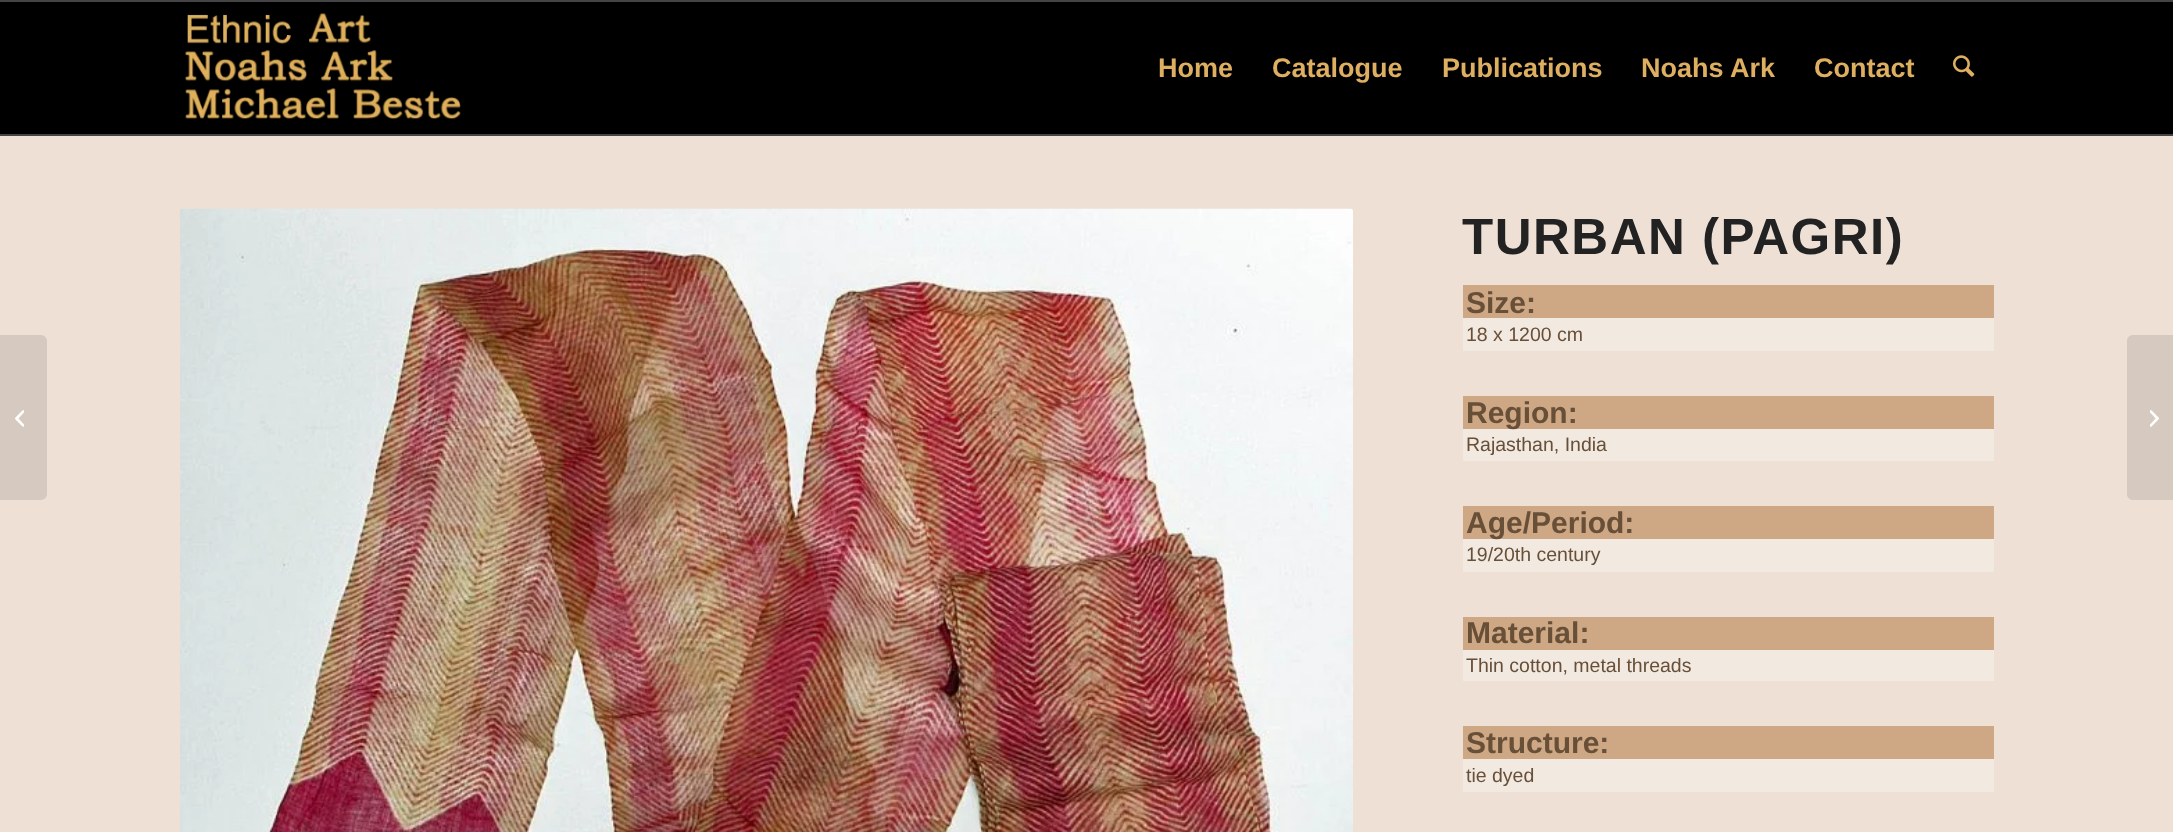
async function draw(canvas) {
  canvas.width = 2173;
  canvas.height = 832;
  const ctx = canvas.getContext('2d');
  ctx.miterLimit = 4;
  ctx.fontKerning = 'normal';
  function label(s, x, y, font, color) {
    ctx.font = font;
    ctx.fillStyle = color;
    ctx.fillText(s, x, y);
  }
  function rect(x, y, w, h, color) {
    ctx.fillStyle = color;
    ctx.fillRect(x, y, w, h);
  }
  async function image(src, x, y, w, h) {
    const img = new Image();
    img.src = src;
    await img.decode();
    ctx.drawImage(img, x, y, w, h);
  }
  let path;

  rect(0, 0, 2173, 832, '#eee0d5');
  rect(0, 2, 2173, 132, '#000');
  rect(0, 0, 2173, 2, '#444');
  rect(0, 134, 2173, 2, '#444');
  await image('assets/img1.png', 184, 13, 277, 107);
  label('Home', 1158, 77, 'bold 27px Liberation Sans', '#deae61');
  label('Catalogue', 1272, 77, 'bold 27px Liberation Sans', '#deae61');
  label('Publications', 1442, 77, 'bold 27px Liberation Sans', '#deae61');
  label('Noahs Ark', 1641, 77, 'bold 27px Liberation Sans', '#deae61');
  label('Contact', 1814, 77, 'bold 27px Liberation Sans', '#deae61');
  await image('assets/img2.png', 1953, 55, 22, 22);
  ctx.fillStyle = '#d6cac0';
  ctx.beginPath();
  ctx.roundRect(0, 335, 47, 165, [0, 6, 6, 0]);
  ctx.fill();
  await image('assets/img3.png', 15, 410, 9, 17);
  await image('assets/img4.png', 180, 208, 1173, 624);
  ctx.letterSpacing = '1.5px';
  label('TURBAN (PAGRI)', 1462, 254, 'bold 51px Liberation Sans', '#222');
  rect(1463, 285, 531, 33, '#cea784');
  ctx.letterSpacing = '0px';
  label('Size:', 1466, 313, 'bold 30px Liberation Sans', '#674f38');
  rect(1463, 318, 531, 33, '#f2e9e1');
  label('18 x 1200 cm', 1466, 341, '19.5px Liberation Sans', '#674f38');
  rect(1463, 396, 531, 33, '#cea784');
  rect(1463, 429, 531, 32, '#f2e9e1');
  label('Region:', 1466, 423, 'bold 30px Liberation Sans', '#674f38');
  label('Rajasthan, India', 1466, 451, '19.5px Liberation Sans', '#674f38');
  rect(1463, 506, 531, 33, '#cea784');
  rect(1463, 539, 531, 33, '#f2e9e1');
  label('Age/Period:', 1466, 533, 'bold 30px Liberation Sans', '#674f38');
  label('19/20th century', 1466, 561, '19.5px Liberation Sans', '#674f38');
  rect(1463, 617, 531, 33, '#cea784');
  label('Material:', 1466, 643, 'bold 30px Liberation Sans', '#674f38');
  rect(1463, 650, 531, 31, '#f2e9e1');
  label('Thin cotton, metal threads', 1466, 672, '19.5px Liberation Sans', '#674f38');
  rect(1463, 726, 531, 33, '#cea784');
  label('Structure:', 1466, 753, 'bold 30px Liberation Sans', '#674f38');
  rect(1463, 759, 531, 33, '#f2e9e1');
  label('tie dyed', 1466, 782, '19.5px Liberation Sans', '#674f38');
  ctx.fillStyle = '#d6cac0';
  path = new Path2D('M2133 335H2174V500H2133C2129.5 500 2127 497.5 2127 494V341C2127 337.5 2129.5 335 2133 335Z');
  ctx.fill(path);
  await image('assets/img5.png', 2150, 410, 9, 17);
}

draw(document.querySelector('canvas'));
